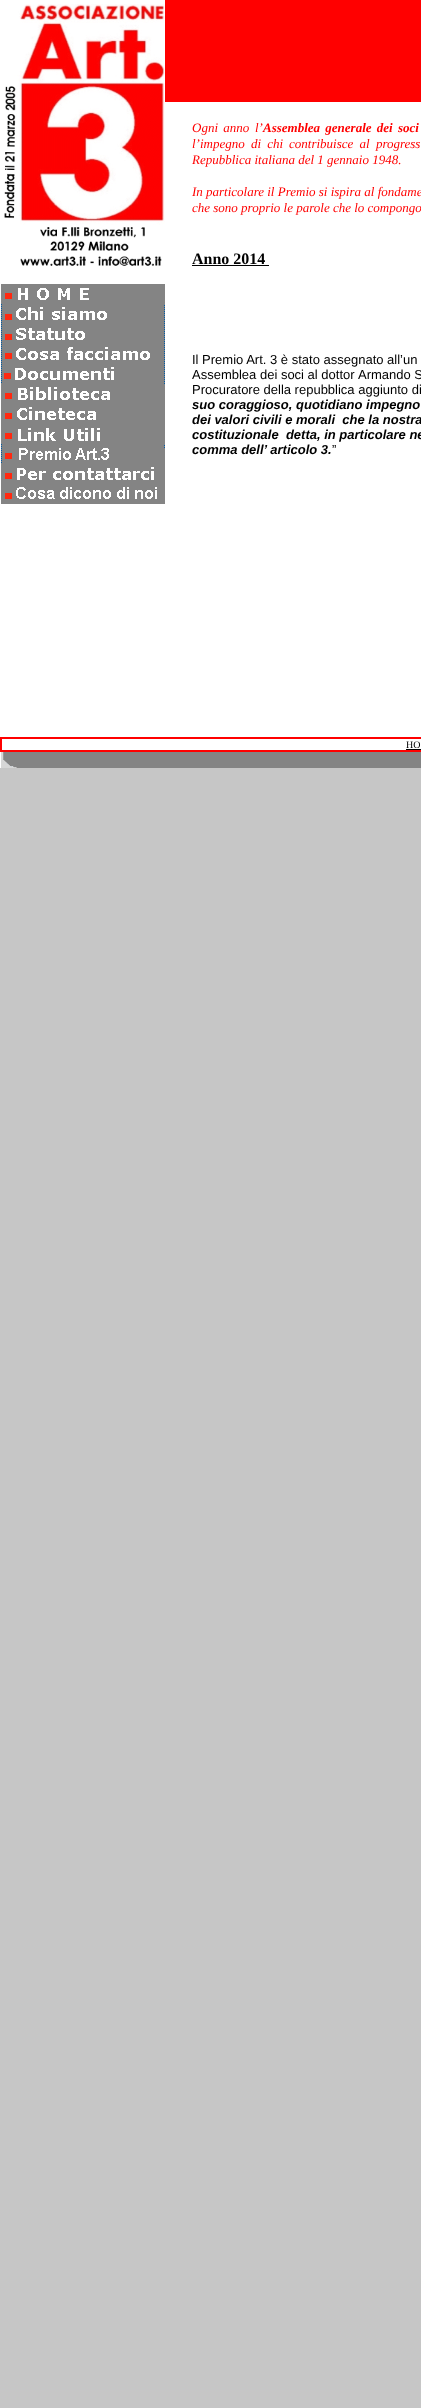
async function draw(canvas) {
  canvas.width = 421;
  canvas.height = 2408;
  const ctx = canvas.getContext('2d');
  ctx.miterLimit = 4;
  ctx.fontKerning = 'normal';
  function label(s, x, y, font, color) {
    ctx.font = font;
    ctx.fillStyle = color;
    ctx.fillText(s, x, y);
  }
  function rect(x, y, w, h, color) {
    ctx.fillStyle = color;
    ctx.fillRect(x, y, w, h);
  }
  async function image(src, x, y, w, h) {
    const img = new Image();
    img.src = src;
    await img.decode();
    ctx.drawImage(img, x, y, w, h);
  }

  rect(0, 0, 421, 2408, '#c6c6c6');
  rect(0, 0, 421, 768, '#fff');
  await image('assets/img1.png', 4, 4, 161, 262);
  await image('assets/img2.png', 1, 284, 164, 20);
  await image('assets/img3.png', 1, 304, 164, 20);
  await image('assets/img4.png', 1, 324, 164, 20);
  await image('assets/img5.png', 1, 344, 164, 20);
  await image('assets/img6.png', 1, 364, 164, 20);
  await image('assets/img7.png', 1, 384, 164, 20);
  await image('assets/img8.png', 1, 404, 164, 20);
  await image('assets/img9.png', 1, 424, 164, 20);
  await image('assets/img10.png', 1, 444, 164, 20);
  await image('assets/img11.png', 1, 464, 164, 20);
  await image('assets/img12.png', 1, 484, 164, 20);
  rect(165, 0, 256, 102, '#f00');
  ctx.wordSpacing = '2px';
  label('Ogni anno', 192, 132, 'italic 13px Liberation Serif', '#f00');
  ctx.wordSpacing = '0px';
  label('l’', 255, 132, 'italic 13px Liberation Serif', '#f00');
  ctx.wordSpacing = '2px';
  label('Assemblea generale dei soci', 263, 132, 'italic bold 13px Liberation Serif', '#f00');
  ctx.wordSpacing = '3px';
  label('l’impegno di chi', 192, 148, 'italic 13px Liberation Serif', '#f00');
  label('contribuisce al progress', 289, 148, 'italic 13px Liberation Serif', '#f00');
  ctx.wordSpacing = '0px';
  label('Repubblica italiana del 1 gennaio 1948.', 192, 164, 'italic 13px Liberation Serif', '#f00');
  label('In', 192, 196, 'italic 13px Liberation Serif', '#f00');
  label('particolare il Premio si ispira al fondame', 206, 196, 'italic 13px Liberation Serif', '#f00');
  label('che sono proprio le parole che lo compongo', 192, 212, 'italic 13px Liberation Serif', '#f00');
  label('Anno 2014', 192, 264, 'bold 16px Liberation Serif', '#000');
  rect(192, 265, 77, 1, '#000');
  label('Il Premio Art. 3 è stato assegnato all’un', 192, 364, '13px Liberation Sans', '#000');
  label('Assemblea dei soci al dottor', 192, 379, '13px Liberation Sans', '#000');
  label('Armando S', 358, 379, '13px Liberation Sans', '#000');
  label('Procuratore della repubblica aggiunto di', 192, 394, '13px Liberation Sans', '#000');
  label('suo coraggioso, quotidiano impegno', 192, 409, 'italic bold 13px Liberation Sans', '#000');
  label('dei valori civili e morali  che la nostra', 192, 424, 'italic bold 13px Liberation Sans', '#000');
  label('costituzionale  detta, in particolare ne', 192, 439, 'italic bold 13px Liberation Sans', '#000');
  label('comma dell’ articolo 3.', 192, 454, 'italic bold 13px Liberation Sans', '#000');
  label('”', 332, 454, '13px Liberation Sans', '#000');
  rect(0, 737, 421, 2, '#f00');
  rect(0, 750, 421, 2, '#f00');
  rect(0, 737, 2, 15, '#f00');
  label('HO', 406, 748, '10px Liberation Serif', '#000');
  rect(406, 749, 15, 1, '#000');
  await image('assets/img13.png', 1, 752, 420, 16);
}

draw(document.querySelector('canvas'));
